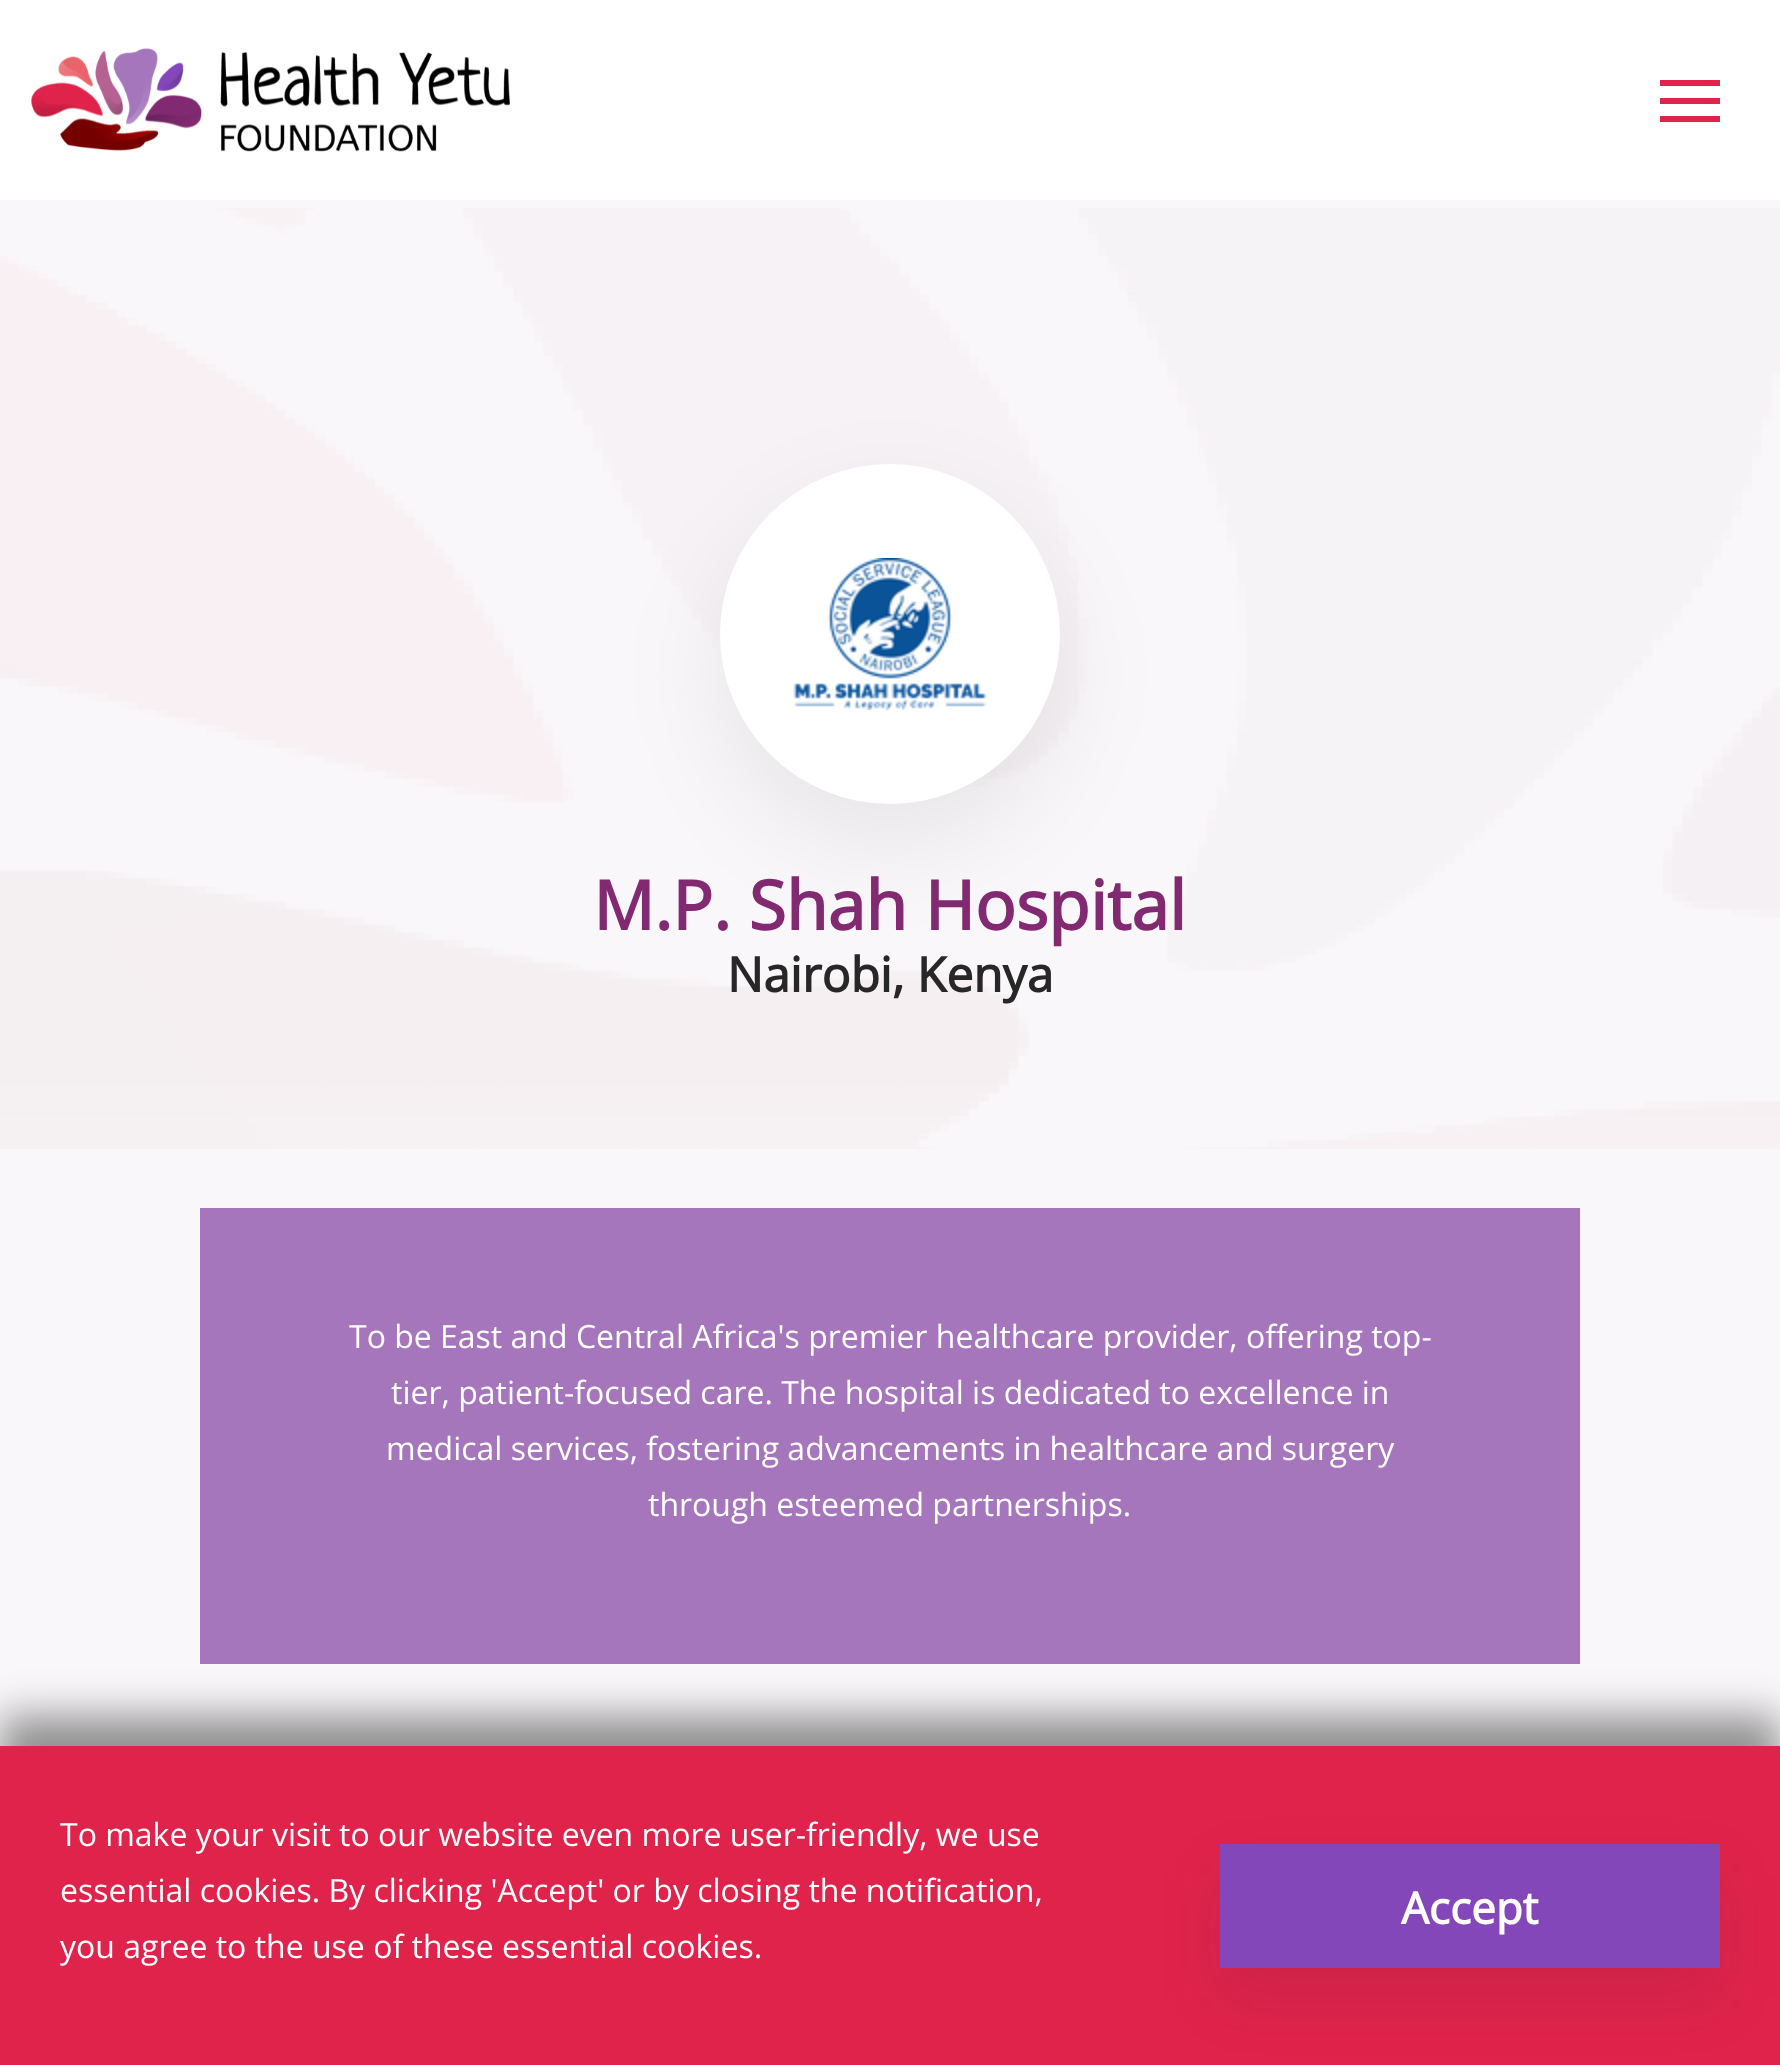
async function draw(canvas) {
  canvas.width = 1780;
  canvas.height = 2065;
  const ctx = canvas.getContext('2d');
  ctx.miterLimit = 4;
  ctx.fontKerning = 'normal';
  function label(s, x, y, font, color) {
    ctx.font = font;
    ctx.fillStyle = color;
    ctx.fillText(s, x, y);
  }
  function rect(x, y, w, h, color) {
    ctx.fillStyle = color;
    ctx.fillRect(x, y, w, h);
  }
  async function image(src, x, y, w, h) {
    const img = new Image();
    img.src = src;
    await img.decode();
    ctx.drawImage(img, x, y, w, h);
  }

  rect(0, 0, 1780, 2065, '#f9f7f9');
  rect(0, 0, 1780, 200, '#fff');
  await image('assets/img1.png', 30, 48, 480, 104);
  rect(1660, 80, 60, 6, '#e0234b');
  rect(1660, 98, 60, 6, '#e0234b');
  rect(1660, 116, 60, 6, '#e0234b');
  await image('assets/img2.png', 0, 208, 1780, 941);
  ctx.fillStyle = '#00000012';
  ctx.filter = 'blur(50px)';
  ctx.beginPath();
  ctx.roundRect(720, 504, 340, 340, 170);
  ctx.fill();
  ctx.filter = 'none';
  ctx.fillStyle = '#fff';
  ctx.beginPath();
  ctx.arc(890, 634, 170, 0, 2 * Math.PI);
  ctx.fill();
  await image('assets/img3.png', 793, 558, 194, 152);
  label('M.P. Shah Hospital', 593, 930, 'bold 68px Open Sans', '#822a71');
  label('Nairobi, Kenya', 727, 992, 'bold 48px Open Sans', '#272727');
  rect(200, 1208, 1380, 456, '#a676bd');
  label('To be East and Central Africa\'s premier healthcare provider, offering top-', 349, 1348, '32px Open Sans', '#fff');
  label('tier, patient-focused care. The hospital is dedicated to excellence in', 391, 1404, '32px Open Sans', '#fff');
  label('medical services, fostering advancements in healthcare and surgery', 386, 1460, '32px Open Sans', '#fff');
  label('through esteemed partnerships.', 648, 1516, '32px Open Sans', '#fff');
  ctx.fillStyle = '#27272780';
  ctx.filter = 'blur(20px)';
  ctx.beginPath();
  ctx.rect(0, 1716, 1780, 320);
  ctx.fill();
  ctx.filter = 'none';
  rect(0, 1746, 1780, 319, '#e0234b');
  label('To make your visit to our website even more user-friendly, we use', 60, 1846, '32px Open Sans', '#fff');
  label('essential cookies. By clicking \'Accept\' or by closing the notification,', 60, 1902, '32px Open Sans', '#fff');
  label('you agree to the use of these essential cookies.', 60, 1958, '32px Open Sans', '#fff');
  ctx.fillStyle = '#2727271a';
  ctx.filter = 'blur(30px)';
  ctx.beginPath();
  ctx.rect(1220, 1874, 500, 124);
  ctx.fill();
  ctx.filter = 'none';
  rect(1220, 1844, 500, 124, '#8347b9');
  label('Accept', 1401, 1924, 'bold 44px Open Sans', '#fff');
}

draw(document.querySelector('canvas'));
